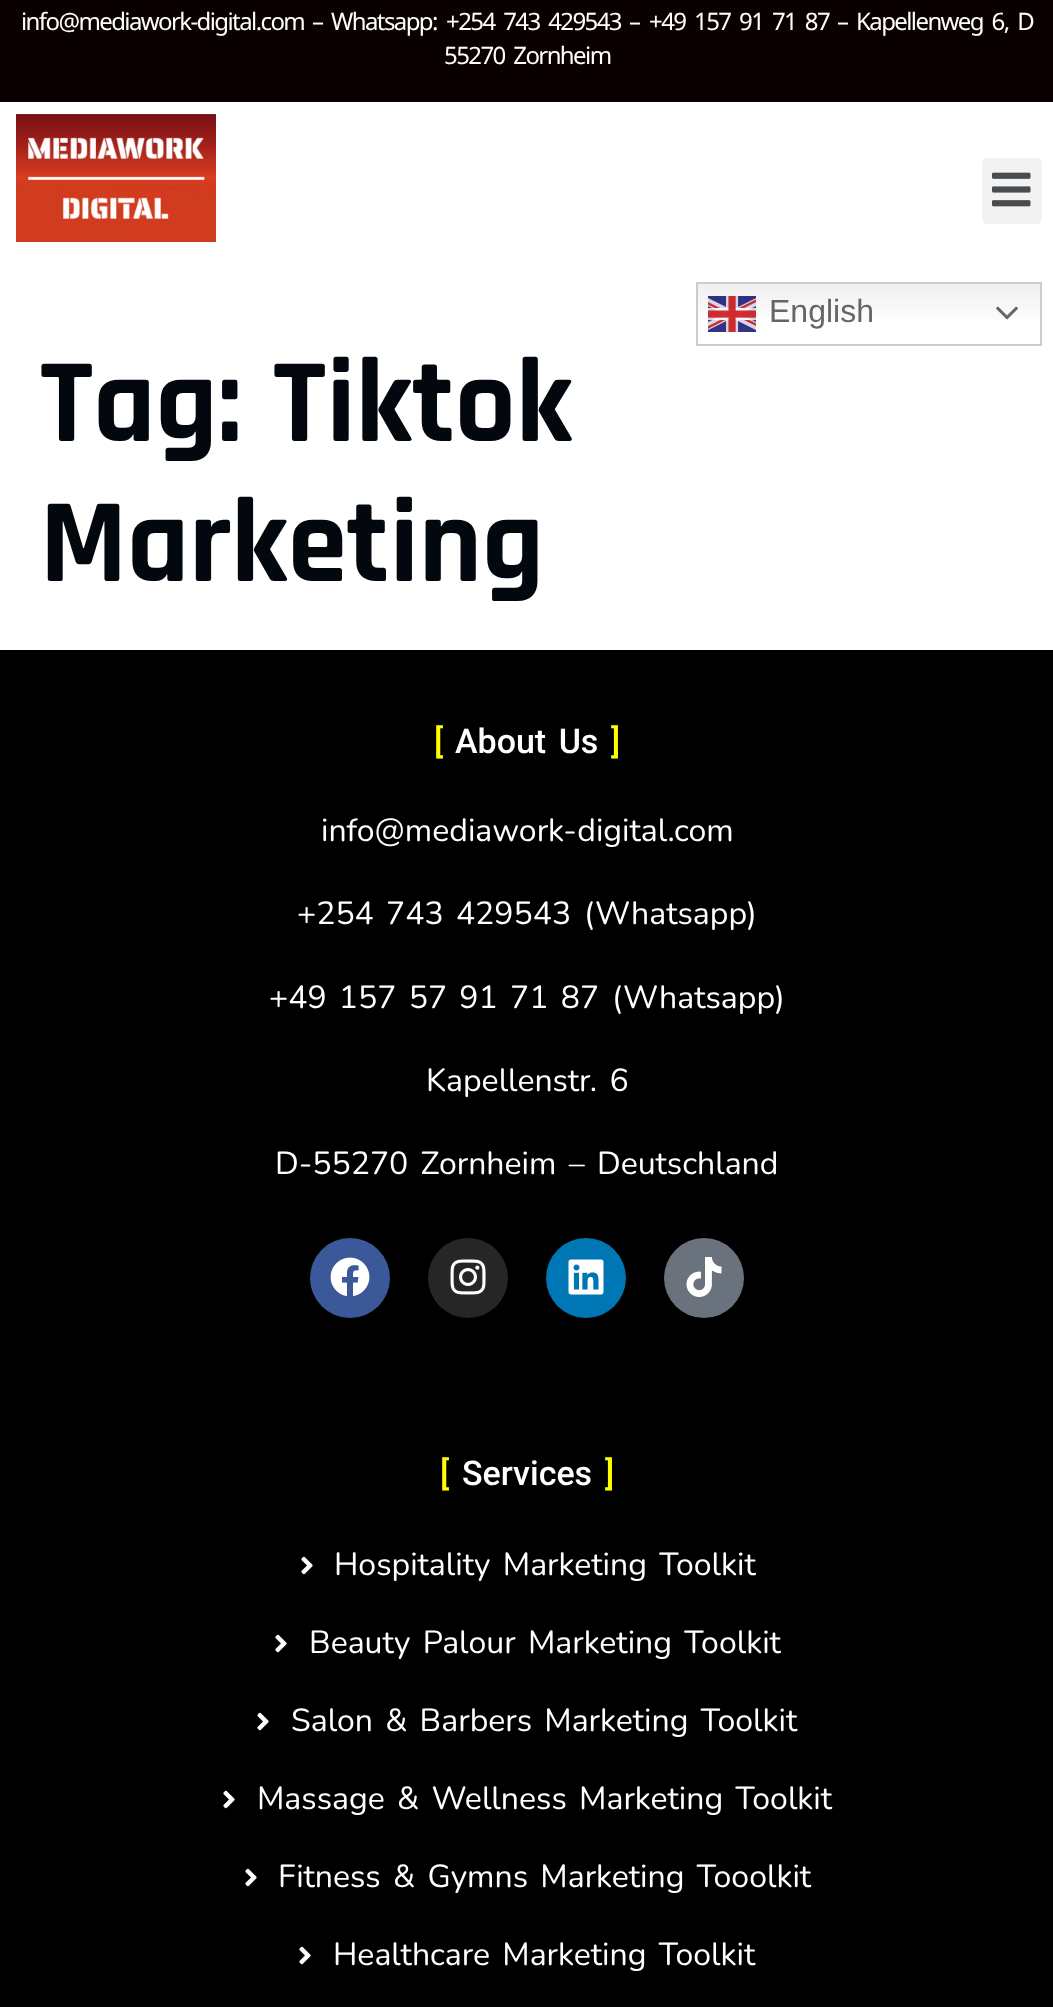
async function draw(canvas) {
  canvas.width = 1053;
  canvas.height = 2007;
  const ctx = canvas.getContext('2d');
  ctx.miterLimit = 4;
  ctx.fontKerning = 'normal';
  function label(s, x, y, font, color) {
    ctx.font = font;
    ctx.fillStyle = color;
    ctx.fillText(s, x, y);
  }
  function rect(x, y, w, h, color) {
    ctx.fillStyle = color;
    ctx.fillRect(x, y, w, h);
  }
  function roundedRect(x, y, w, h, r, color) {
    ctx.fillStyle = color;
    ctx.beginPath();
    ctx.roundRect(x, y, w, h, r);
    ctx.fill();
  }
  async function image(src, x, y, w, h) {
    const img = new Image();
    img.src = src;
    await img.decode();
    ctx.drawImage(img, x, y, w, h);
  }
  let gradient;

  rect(0, 0, 1053, 2007, '#fff');
  rect(0, 0, 1053, 102, '#0a0000');
  ctx.letterSpacing = '-1.6px';
  label('info@mediawork-digital.com', 21, 30, '24px Noto Sans', '#fff');
  ctx.wordSpacing = '4px';
  label('– Whatsapp:', 312, 30, '24px Noto Sans', '#fff');
  label('+254 743 429543', 446, 30, '24px Noto Sans', '#fff');
  ctx.wordSpacing = '0px';
  label('–', 629, 30, '24px Noto Sans', '#fff');
  ctx.wordSpacing = '4px';
  label('+49 157 91 71 87', 649, 30, '24px Noto Sans', '#fff');
  label('– Kapellenweg 6, D', 837, 30, '24px Noto Sans', '#fff');
  label('55270 Zornheim', 444, 64, '24px Noto Sans', '#fff');
  await image('assets/img1.png', 16, 114, 200, 128);
  roundedRect(982, 158, 60, 66, 6, '#f2f2f2');
  await image('assets/img2.png', 992, 172, 39, 35);
  gradient = ctx.createLinearGradient(869, 282, 869, 346);
  gradient.addColorStop(0, '#efefef');
  gradient.addColorStop(0.7, '#fff');
  ctx.fillStyle = gradient;
  ctx.fillRect(698, 284, 342, 36);
  ctx.strokeStyle = '#ccc';
  ctx.lineWidth = 2;
  ctx.strokeRect(697, 283, 344, 62);
  await image('assets/img3.png', 708, 296, 48, 36);
  ctx.letterSpacing = '0px';
  ctx.wordSpacing = '0px';
  label('English', 769, 322, '32px Liberation Sans', '#666');
  await image('assets/img4.png', 996, 306, 22, 14);
  label('Tag:', 40, 441, 'bold 120px Rajdhani', '#02080e');
  label('Tiktok', 273, 441, 'bold 120px Rajdhani', '#02080e');
  label('Marketing', 40, 581, 'bold 120px Rajdhani', '#02080e');
  rect(0, 650, 1053, 1357, '#000');
  label('[', 434, 753, '500 34px Roboto', '#ff0');
  ctx.wordSpacing = '4px';
  label('About Us', 455, 753, '500 34px Roboto', '#fff');
  ctx.wordSpacing = '0px';
  label(']', 611, 753, '500 34px Roboto', '#ff0');
  label('info@mediawork-digital.com', 321, 841, '32px Nunito', '#fff');
  ctx.wordSpacing = '4px';
  label('+254 743 429543', 297, 924, '32px Nunito', '#fff');
  ctx.wordSpacing = '0px';
  label('(Whatsapp)', 584, 924, '32px Nunito', '#fff');
  ctx.wordSpacing = '4px';
  label('+49 157 57 91 71 87', 269, 1008, '32px Nunito', '#fff');
  ctx.wordSpacing = '0px';
  label('(Whatsapp)', 612, 1008, '32px Nunito', '#fff');
  ctx.wordSpacing = '4px';
  label('Kapellenstr. 6', 426, 1091, '32px Nunito', '#fff');
  label('D-55270 Zornheim – Deutschland', 275, 1174, '32px Nunito', '#fff');
  ctx.fillStyle = '#3b5998';
  ctx.beginPath();
  ctx.arc(350, 1278, 40, 0, 2 * Math.PI);
  ctx.fill();
  await image('assets/img5.png', 330, 1257, 40, 40);
  ctx.fillStyle = '#262626';
  ctx.beginPath();
  ctx.arc(468, 1278, 40, 0, 2 * Math.PI);
  ctx.fill();
  await image('assets/img6.png', 450, 1259, 36, 36);
  ctx.fillStyle = '#0077b5';
  ctx.beginPath();
  ctx.arc(586, 1278, 40, 0, 2 * Math.PI);
  ctx.fill();
  await image('assets/img7.png', 568, 1259, 36, 36);
  ctx.fillStyle = '#69727d';
  ctx.beginPath();
  ctx.arc(704, 1278, 40, 0, 2 * Math.PI);
  ctx.fill();
  await image('assets/img8.png', 686, 1257, 36, 40);
  ctx.wordSpacing = '0px';
  label('[', 440, 1485, '500 34px Roboto', '#ff0');
  label('Services', 462, 1485, '500 34px Roboto', '#fff');
  label(']', 605, 1485, '500 34px Roboto', '#ff0');
  await image('assets/img9.png', 301, 1556, 12, 19);
  ctx.wordSpacing = '4px';
  label('Hospitality Marketing Toolkit', 334, 1575, '32px Nunito', '#fff');
  await image('assets/img9.png', 275, 1634, 12, 19);
  label('Beauty Palour Marketing Toolkit', 309, 1653, '32px Nunito', '#fff');
  await image('assets/img9.png', 257, 1712, 12, 19);
  label('Salon & Barbers Marketing Toolkit', 291, 1731, '32px Nunito', '#fff');
  await image('assets/img9.png', 223, 1790, 12, 19);
  label('Massage & Wellness Marketing Toolkit', 257, 1809, '32px Nunito', '#fff');
  await image('assets/img9.png', 245, 1868, 12, 19);
  label('Fitness & Gymns Marketing Tooolkit', 278, 1887, '32px Nunito', '#fff');
  await image('assets/img9.png', 299, 1946, 12, 19);
  label('Healthcare Marketing Toolkit', 333, 1965, '32px Nunito', '#fff');
}

draw(document.querySelector('canvas'));
